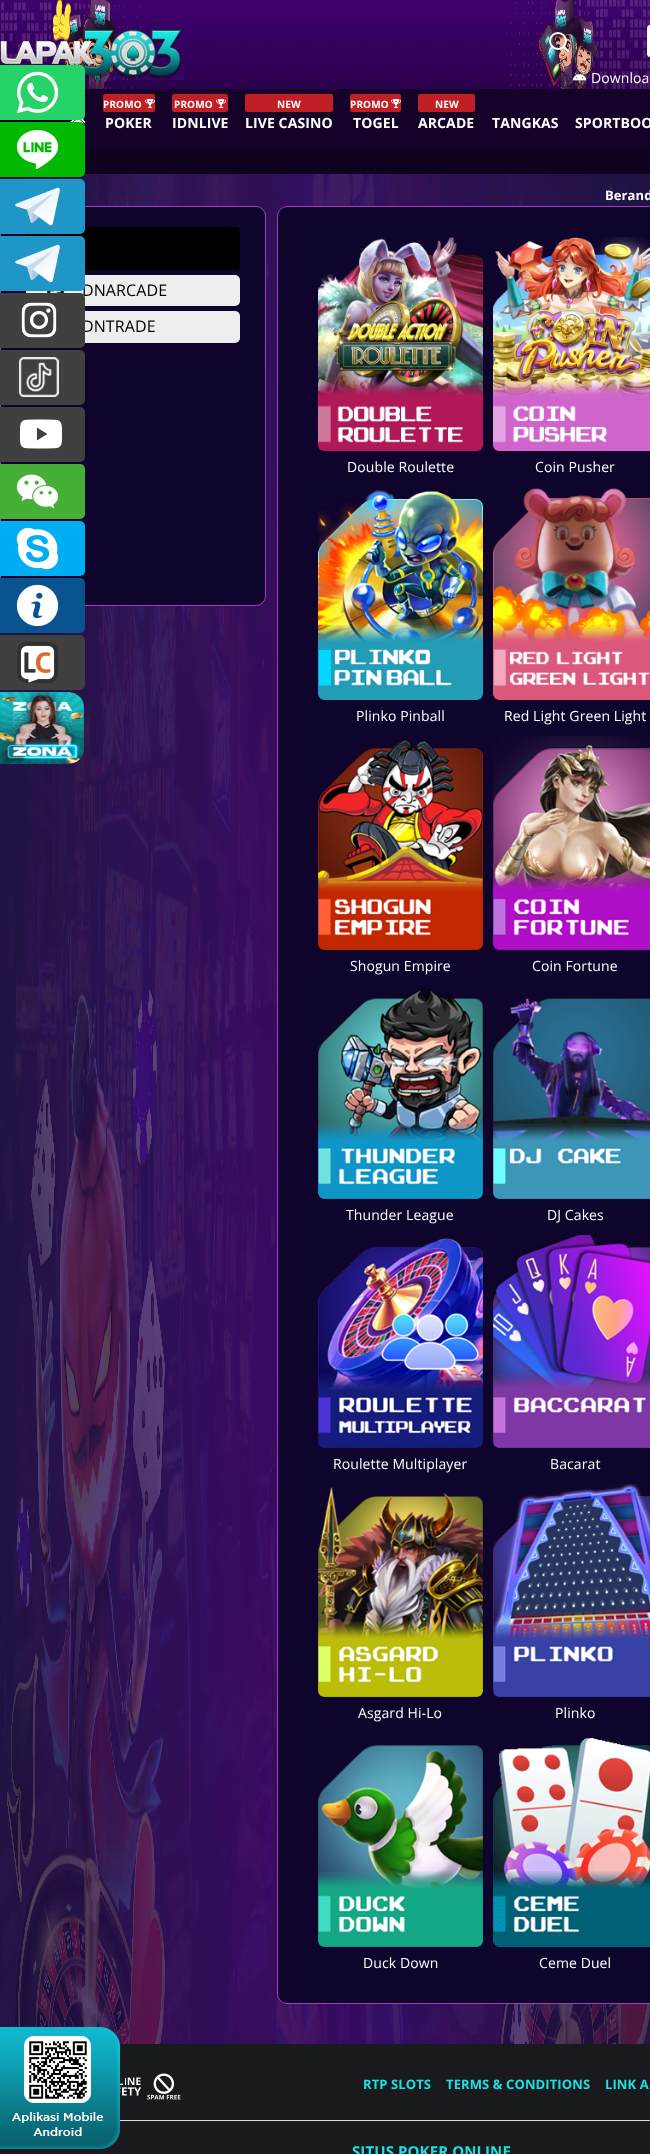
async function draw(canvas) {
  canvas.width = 650;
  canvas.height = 2154;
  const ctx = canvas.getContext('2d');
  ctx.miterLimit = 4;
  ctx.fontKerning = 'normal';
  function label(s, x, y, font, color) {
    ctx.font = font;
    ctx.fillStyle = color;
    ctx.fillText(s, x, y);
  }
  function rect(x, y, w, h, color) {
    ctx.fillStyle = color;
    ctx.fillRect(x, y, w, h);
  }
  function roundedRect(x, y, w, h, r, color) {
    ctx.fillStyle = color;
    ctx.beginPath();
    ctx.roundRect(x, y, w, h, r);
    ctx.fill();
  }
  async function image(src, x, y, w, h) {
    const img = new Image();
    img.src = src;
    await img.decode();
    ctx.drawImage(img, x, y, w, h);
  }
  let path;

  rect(0, 0, 650, 2154, '#0f021e');
  rect(0, 89, 650, 60, '#150228');
  await image('assets/img12.png', 0, 0, 650, 89);
  await image('assets/img13.png', 0, 30, 184, 50);
  await image('assets/img15.png', 70, 118, 16, 6);
  ctx.fillStyle = '#25d366';
  ctx.beginPath();
  ctx.roundRect(0, 65, 85, 55, [0, 5, 5, 0]);
  ctx.fill();
  await image('assets/img1.png', 17, 71, 42, 43);
  await image('assets/img17.png', 0, 174, 650, 1870);
  ctx.fillStyle = '#00b900';
  ctx.beginPath();
  ctx.roundRect(0, 122, 85, 55, [0, 5, 5, 0]);
  ctx.fill();
  await image('assets/img2.png', 16, 130, 43, 39);
  ctx.fillStyle = '#0f042c';
  ctx.beginPath();
  ctx.roundRect(0.5, 206.5, 265, 399, 9.5);
  ctx.fill();
  ctx.strokeStyle = '#a43ac0';
  ctx.stroke();
  roundedRect(26, 227, 214, 43, 4, '#000');
  ctx.fillStyle = '#1e96c8';
  ctx.beginPath();
  ctx.roundRect(0, 179, 85, 55, [0, 5, 5, 0]);
  ctx.fill();
  await image('assets/img3.png', 15, 187, 45, 39);
  roundedRect(26, 275, 214, 31, 5, '#eee');
  ctx.letterSpacing = '0.1px';
  label('DNARCADE', 82, 296, '16px Open Sans', '#000');
  ctx.fillStyle = '#1e96c8';
  ctx.beginPath();
  ctx.roundRect(0, 236, 85, 55, [0, 5, 5, 0]);
  ctx.fill();
  await image('assets/img3.png', 15, 244, 45, 39);
  roundedRect(26, 311, 214, 32, 5, '#eee');
  label('DNTRADE', 82, 332, '16px Open Sans', '#000');
  ctx.fillStyle = '#404040';
  ctx.beginPath();
  ctx.roundRect(0, 293, 85, 55, [0, 5, 5, 0]);
  ctx.fill();
  await image('assets/img4.png', 21, 302, 36, 36);
  ctx.beginPath();
  ctx.roundRect(0, 350, 85, 55, [0, 5, 5, 0]);
  ctx.fill();
  await image('assets/img5.png', 19, 357, 40, 40);
  ctx.beginPath();
  ctx.roundRect(0, 407, 85, 55, [0, 5, 5, 0]);
  ctx.fill();
  await image('assets/img6.png', 20, 419, 42, 30);
  ctx.fillStyle = '#45b035';
  ctx.beginPath();
  ctx.roundRect(0, 464, 85, 55, [0, 5, 5, 0]);
  ctx.fill();
  await image('assets/img7.png', 16, 474, 43, 35);
  ctx.fillStyle = '#00aef3';
  ctx.beginPath();
  ctx.roundRect(0, 521, 85, 55, [0, 5, 5, 0]);
  ctx.fill();
  await image('assets/img8.png', 16, 527, 43, 43);
  ctx.fillStyle = '#095490';
  ctx.beginPath();
  ctx.roundRect(0, 578, 85, 55, [0, 5, 5, 0]);
  ctx.fill();
  await image('assets/img9.png', 16, 584, 43, 43);
  ctx.fillStyle = '#404040';
  ctx.beginPath();
  ctx.roundRect(0, 635, 85, 55, [0, 5, 5, 0]);
  ctx.fill();
  await image('assets/img10.png', 17, 642, 41, 41);
  ctx.beginPath();
  ctx.roundRect(0, 692, 84, 72, [0, 15, 15, 0]);
  ctx.fill();
  await image('assets/img11.png', 0, 692, 84, 72);
  roundedRect(647, 25, 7, 32, 4, '#fff');
  ctx.fillStyle = '#00000012';
  path = new Path2D('M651 26H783C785 26 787 28 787 30V29C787 27 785 25 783 25H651C649 25 647 27 647 29V30C647 28 649 26 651 26Z');
  ctx.fill(path);
  await image('assets/img14.png', 572, 72, 15, 9);
  label('Downloa', 591, 83, '14px Open Sans', '#fff');
  roundedRect(103, 94, 52, 18, 2, '#c01f25');
  label('PROMO', 103, 108, 'bold 10px Open Sans', '#fff');
  await image('assets/img16.png', 145, 99, 10, 9);
  label('POKER', 105, 128, 'bold 14px Open Sans', '#fff');
  roundedRect(172, 94, 56, 18, 2, '#c01f25');
  label('PROMO', 174, 108, 'bold 10px Open Sans', '#fff');
  await image('assets/img16.png', 216, 99, 10, 9);
  label('IDNLIVE', 172, 128, 'bold 14px Open Sans', '#fff');
  roundedRect(245, 94, 88, 18, 2, '#c01f25');
  label('NEW', 277, 108, 'bold 10px Open Sans', '#fff');
  label('LIVE CASINO', 245, 128, 'bold 14px Open Sans', '#fff');
  roundedRect(350, 94, 51, 18, 2, '#c01f25');
  label('PROMO', 350, 108, 'bold 10px Open Sans', '#fff');
  await image('assets/img16.png', 391, 99, 10, 9);
  label('TOGEL', 353, 128, 'bold 14px Open Sans', '#fff');
  roundedRect(418, 94, 57, 18, 2, '#c01f25');
  label('NEW', 435, 108, 'bold 10px Open Sans', '#fff');
  label('ARCADE', 418, 128, 'bold 14px Open Sans', '#fff');
  label('TANGKAS', 492, 128, 'bold 14px Open Sans', '#fff');
  label('SPORTBOO', 575, 128, 'bold 14px Open Sans', '#fff');
  ctx.beginPath();
  ctx.arc(558, 41, 8, 0, 2 * Math.PI);
  ctx.strokeStyle = '#fff';
  ctx.lineWidth = 2;
  ctx.stroke();
  path = new Path2D('M568 51L563.5 46.5');
  ctx.lineCap = 'round';
  ctx.lineJoin = 'round';
  ctx.stroke(path);
  await image('assets/img18.png', 47, 291, 18, 2);
  label('Berand', 605, 200, 'bold 13px Open Sans', '#fff');
  ctx.fillStyle = '#0f042c';
  ctx.beginPath();
  ctx.roundRect(277.5, 206.5, 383, 1797, 9.5);
  ctx.fill();
  ctx.strokeStyle = '#a43ac0';
  ctx.lineWidth = 1;
  ctx.lineJoin = 'miter';
  ctx.stroke();
  await image('assets/img19.png', 318, 237, 165, 214);
  label('Double Roulette', 347, 472, '14px Open Sans', '#fff');
  await image('assets/img20.png', 493, 237, 157, 214);
  label('Coin Pusher', 535, 472, '14px Open Sans', '#fff');
  await image('assets/img21.png', 318, 489, 165, 211);
  label('Plinko Pinball', 356, 721, '14px Open Sans', '#fff');
  await image('assets/img22.png', 493, 488, 157, 212);
  label('Red Light Green Light', 504, 721, '14px Open Sans', '#fff');
  await image('assets/img23.png', 318, 739, 165, 211);
  label('Shogun Empire', 350, 971, '14px Open Sans', '#fff');
  await image('assets/img24.png', 493, 736, 157, 214);
  label('Coin Fortune', 532, 971, '14px Open Sans', '#fff');
  await image('assets/img25.png', 318, 987, 165, 212);
  label('Thunder League', 346, 1220, '14px Open Sans', '#fff');
  await image('assets/img26.png', 493, 998, 157, 201);
  label('DJ Cakes', 547, 1220, '14px Open Sans', '#fff');
  await image('assets/img27.png', 318, 1238, 165, 210);
  label('Roulette Multiplayer', 333, 1469, '14px Open Sans', '#fff');
  await image('assets/img28.png', 493, 1235, 157, 213);
  label('Bacarat', 550, 1469, '14px Open Sans', '#fff');
  await image('assets/img29.png', 318, 1487, 165, 210);
  label('Asgard Hi-Lo', 358, 1718, '14px Open Sans', '#fff');
  await image('assets/img30.png', 493, 1484, 157, 213);
  label('Plinko', 555, 1718, '14px Open Sans', '#fff');
  await image('assets/img31.png', 318, 1745, 165, 202);
  label('Duck Down', 363, 1968, '14px Open Sans', '#fff');
  await image('assets/img32.png', 493, 1738, 157, 209);
  label('Ceme Duel', 539, 1968, '14px Open Sans', '#fff');
  rect(0, 2044, 650, 110, '#191a1e');
  await image('assets/img33.png', 120, 2073, 61, 27);
  label('RTP SLOTS', 363, 2089, 'bold 13px Open Sans', '#1ce1e3');
  label('TERMS & CONDITIONS', 446, 2089, 'bold 13px Open Sans', '#1ce1e3');
  label('LINK A', 605, 2089, 'bold 13px Open Sans', '#1ce1e3');
  rect(120, 2120, 530, 1, '#ddd');
  label('SITUS POKER ONLINE', 352, 2157, 'bold 15px Open Sans', '#1ce1e3');
  await image('assets/img34.png', 0, 2027, 120, 122);
}

draw(document.querySelector('canvas'));
